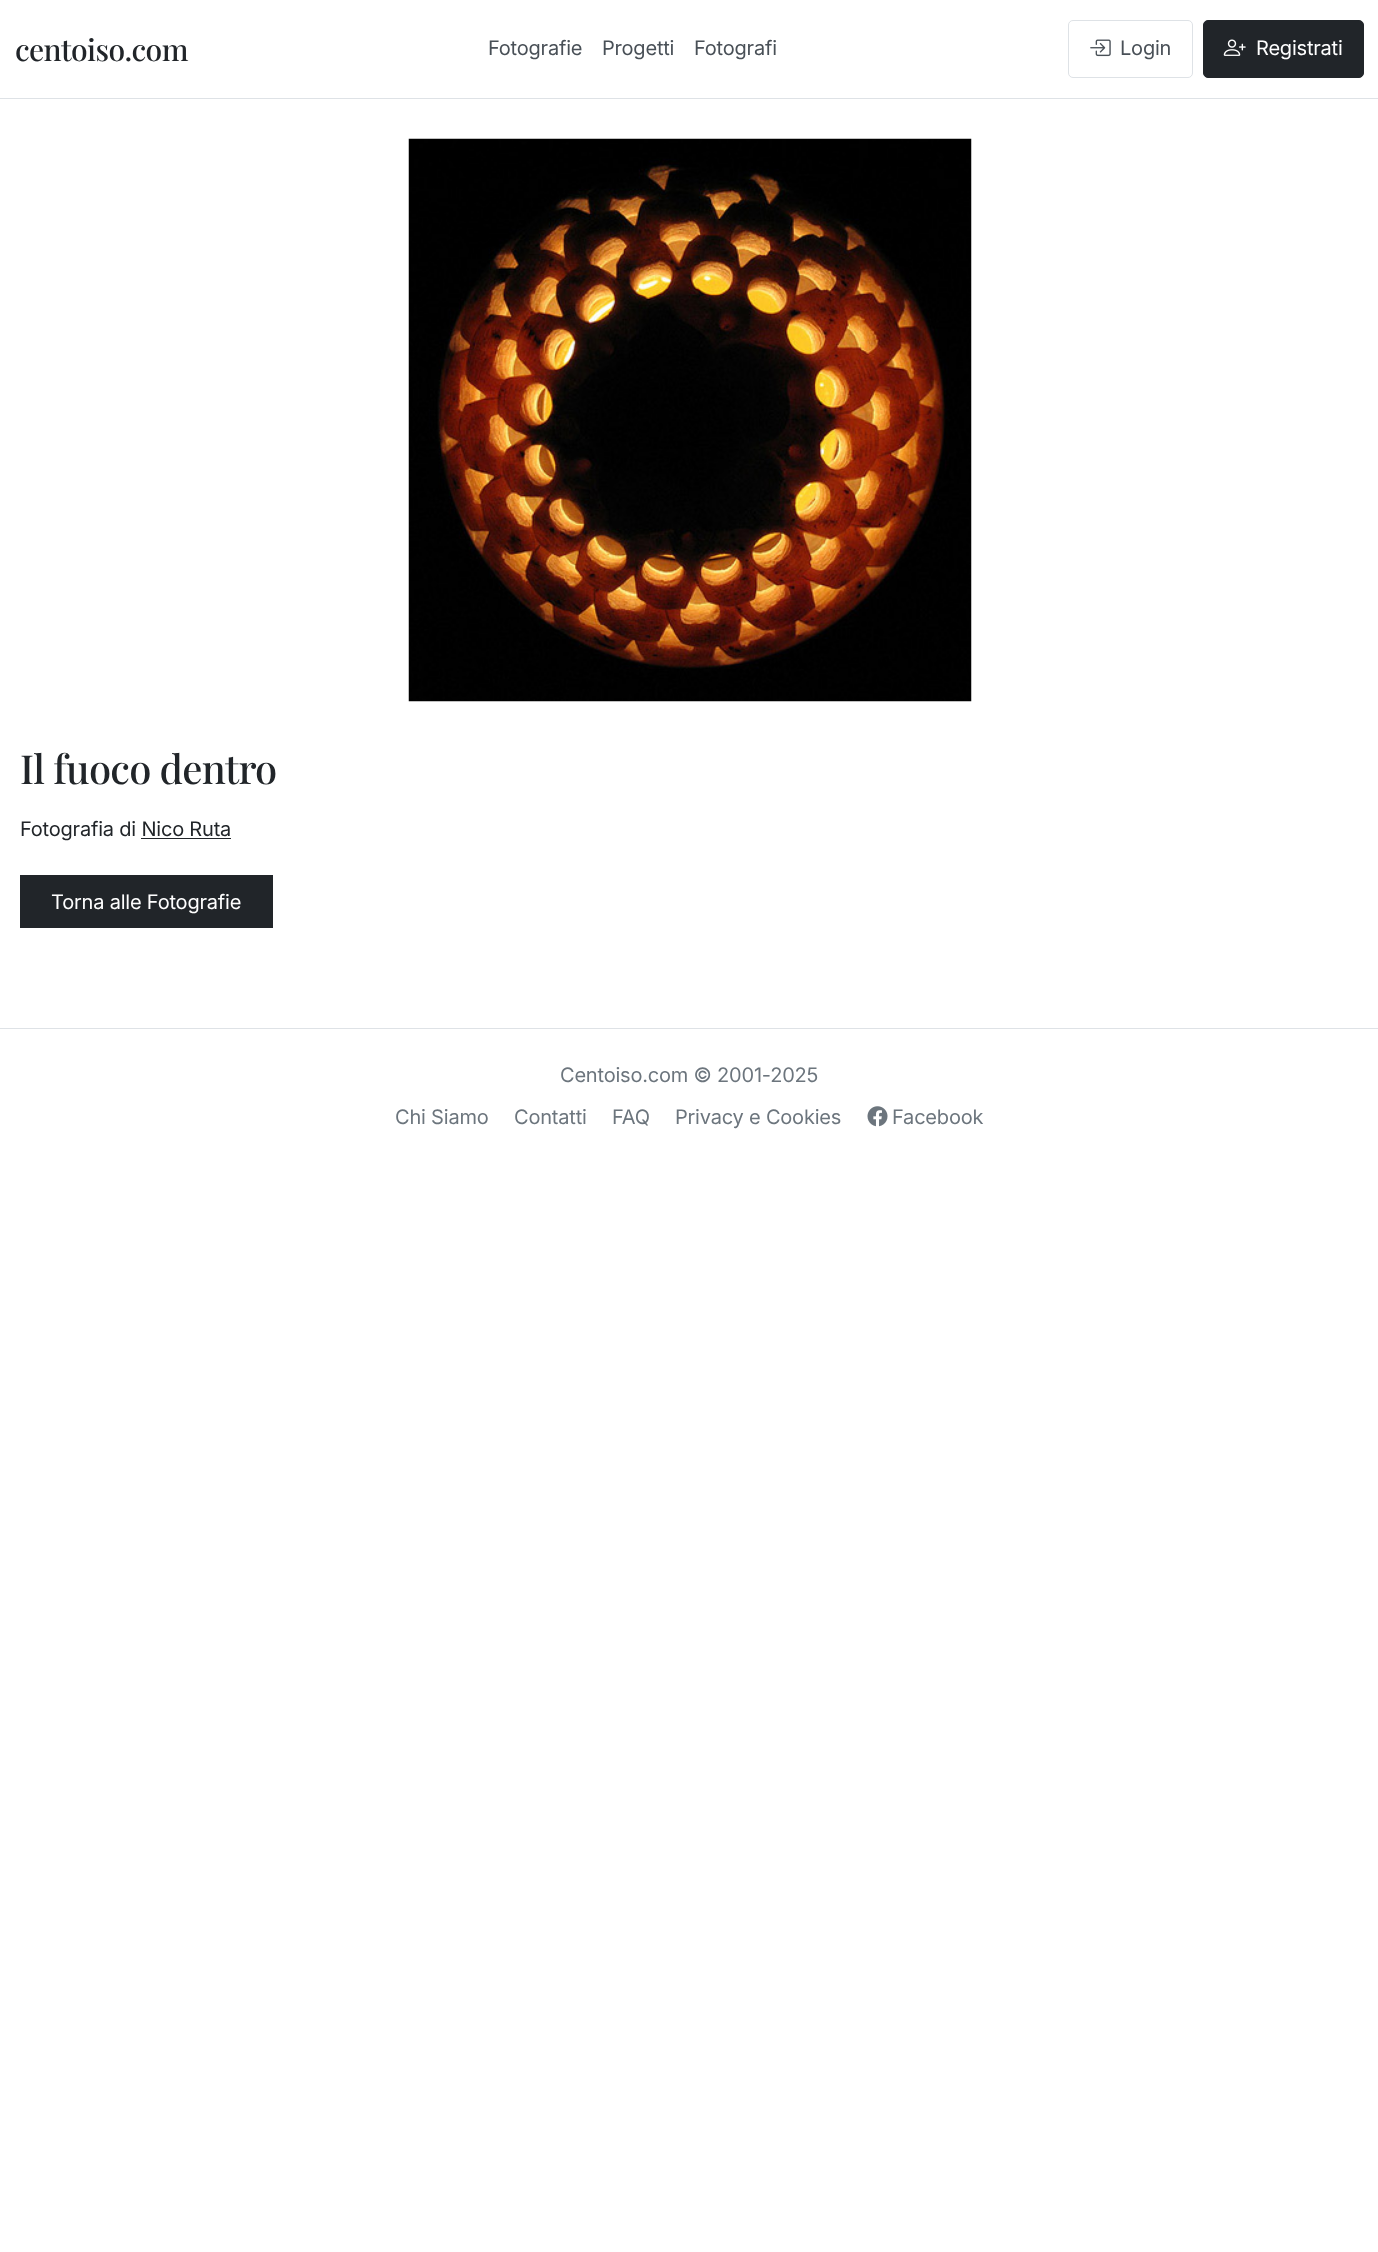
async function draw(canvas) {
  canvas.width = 1378;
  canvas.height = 2252;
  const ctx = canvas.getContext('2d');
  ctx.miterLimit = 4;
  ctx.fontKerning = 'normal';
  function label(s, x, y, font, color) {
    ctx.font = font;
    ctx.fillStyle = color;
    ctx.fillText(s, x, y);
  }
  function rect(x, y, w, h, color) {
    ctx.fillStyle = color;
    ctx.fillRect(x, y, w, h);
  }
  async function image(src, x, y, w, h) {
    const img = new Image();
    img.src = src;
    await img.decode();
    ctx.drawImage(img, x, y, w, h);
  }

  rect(0, 0, 1378, 2252, '#fff');
  rect(0, 98, 1378, 1, '#dee2e6');
  ctx.letterSpacing = '-0.6px';
  label('centoiso.com', 15, 61, '500 30px Playfair Display', '#212529');
  ctx.letterSpacing = '-0.2px';
  label('Fotografie', 488, 55, '20px Inter', '#495057');
  label('Progetti', 602, 55, '20px Inter', '#495057');
  label('Fotografi', 694, 55, '20px Inter', '#495057');
  ctx.beginPath();
  ctx.roundRect(1068.5, 20.5, 124, 57, 4.5);
  ctx.strokeStyle = '#dee2e6';
  ctx.stroke();
  await image('assets/img1.png', 1090, 39, 21, 18);
  label('Login', 1120, 55, '20px Inter', '#495057');
  ctx.fillStyle = '#212529';
  ctx.beginPath();
  ctx.roundRect(1203.5, 20.5, 160, 57, 4.5);
  ctx.fill();
  ctx.strokeStyle = '#212529';
  ctx.stroke();
  await image('assets/img2.png', 1223, 39, 23, 17);
  label('Registrati', 1256, 55, '20px Inter', '#fff');
  await image('assets/img3.png', 408, 138, 564, 564);
  ctx.letterSpacing = '-0.75px';
  label('Il fuoco dentro', 20, 784, '500 40px Playfair Display', '#212529');
  ctx.letterSpacing = '-0.2px';
  label('Fotografia di Nico Ruta', 20, 836, '20px Inter', '#212529');
  rect(141, 838, 90, 1, '#212529');
  rect(20, 875, 253, 53, '#212529');
  label('Torna alle Fotografie', 51, 909, '20px Inter', '#fff');
  rect(0, 1028, 1378, 1, '#dee2e6');
  label('Centoiso.com © 2001-2025', 560, 1082, '20px Inter', '#6c757d');
  label('Chi Siamo', 395, 1124, '20px Inter', '#6c757d');
  label('Contatti', 514, 1124, '20px Inter', '#6c757d');
  label('FAQ', 612, 1124, '20px Inter', '#6c757d');
  label('Privacy e Cookies', 675, 1124, '20px Inter', '#6c757d');
  await image('assets/img4.png', 867, 1106, 21, 21);
  label('Facebook', 892, 1124, '20px Inter', '#6c757d');
}

draw(document.querySelector('canvas'));
